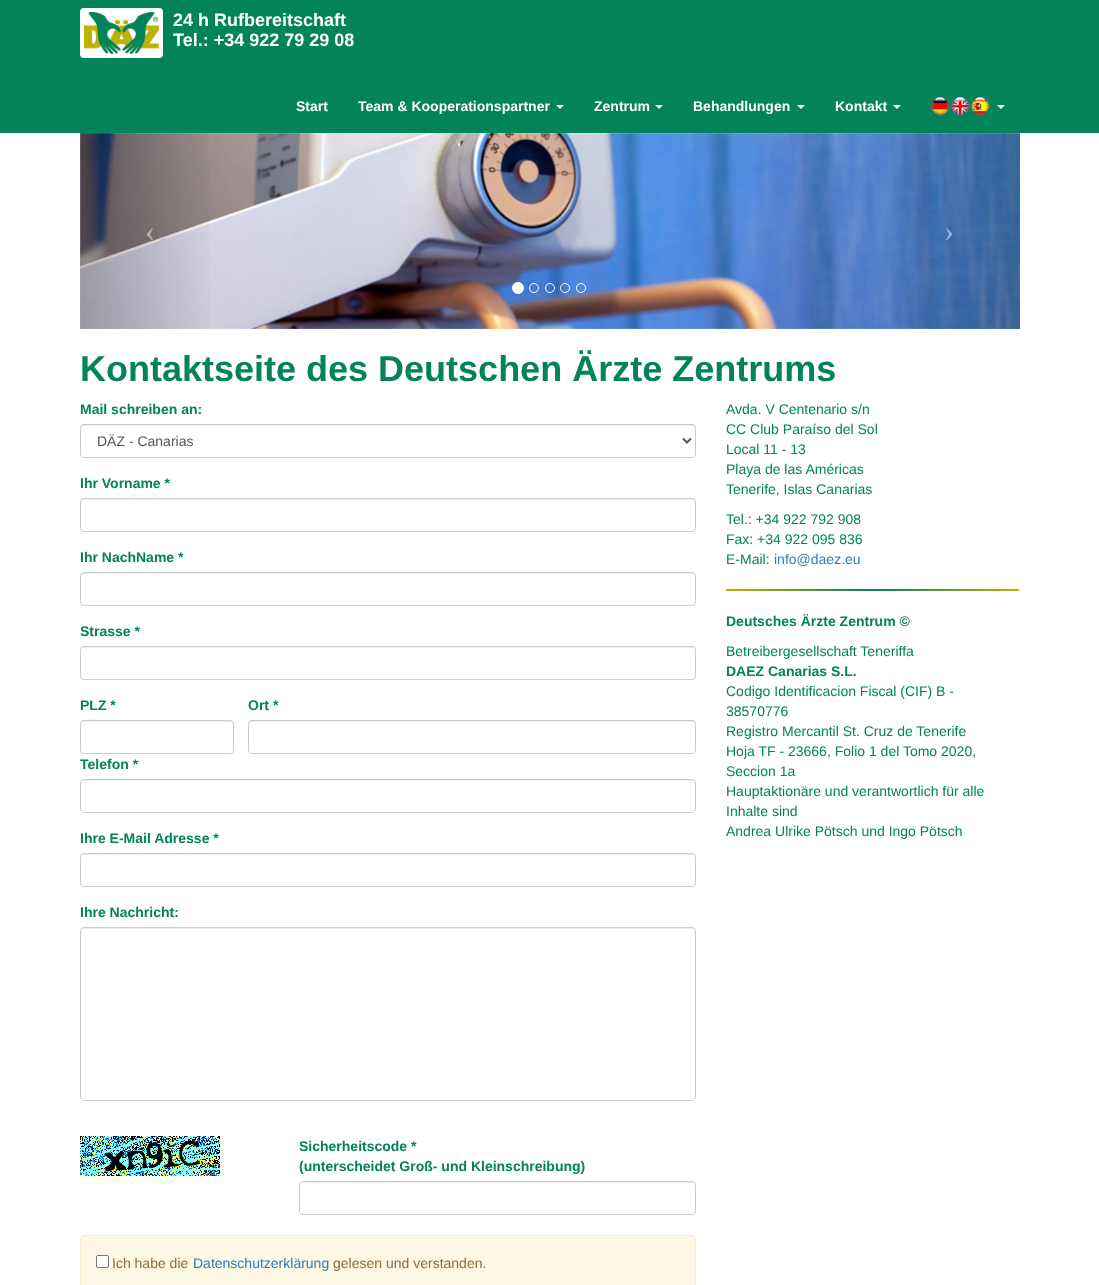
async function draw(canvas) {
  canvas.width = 1099;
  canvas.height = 1285;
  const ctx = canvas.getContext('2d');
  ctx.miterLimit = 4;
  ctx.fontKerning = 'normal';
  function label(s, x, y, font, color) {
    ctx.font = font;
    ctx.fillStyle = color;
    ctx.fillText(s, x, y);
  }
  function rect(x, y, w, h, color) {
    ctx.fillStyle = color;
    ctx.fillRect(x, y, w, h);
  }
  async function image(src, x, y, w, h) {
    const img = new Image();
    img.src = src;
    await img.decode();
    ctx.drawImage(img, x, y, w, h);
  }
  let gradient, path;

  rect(0, 0, 1099, 1285, '#fff');
  rect(0, 0, 1099, 133, '#02835a');
  ctx.beginPath();
  ctx.roundRect(82, 10, 79, 46, 2);
  ctx.strokeStyle = '#fff';
  ctx.lineWidth = 4;
  ctx.stroke();
  await image('assets/img1.png', 84, 12, 75, 42);
  label('24 h Rufbereitschaft', 173, 26, 'bold 18px Liberation Sans', '#fff');
  label('Tel.: +34 922 79 29 08', 173, 46, 'bold 18px Liberation Sans', '#fff');
  label('Start', 296, 111, 'bold 14px Liberation Sans', '#fff');
  label('Team & Kooperationspartner', 358, 111, 'bold 14px Liberation Sans', '#fff');
  path = new Path2D('M556 105H564L560 109Z');
  ctx.fill(path);
  label('Zentrum', 594, 111, 'bold 14px Liberation Sans', '#fff');
  path = new Path2D('M655 105H663L659 109Z');
  ctx.fill(path);
  label('Behandlungen', 693, 111, 'bold 14px Liberation Sans', '#fff');
  path = new Path2D('M797 105H805L801 109Z');
  ctx.fill(path);
  label('Kontakt', 835, 111, 'bold 14px Liberation Sans', '#fff');
  path = new Path2D('M893 105H901L897 109Z');
  ctx.fill(path);
  await image('assets/img2.png', 931, 97, 19, 19);
  await image('assets/img3.png', 951, 97, 19, 19);
  await image('assets/img4.png', 971, 97, 19, 19);
  path = new Path2D('M997 105H1005L1001 109Z');
  ctx.fill(path);
  await image('assets/img5.png', 80, 133, 940, 196);
  gradient = ctx.createLinearGradient(80, 231, 221, 231);
  gradient.addColorStop(0, '#00000040');
  gradient.addColorStop(1, '#00000000');
  ctx.fillStyle = gradient;
  ctx.fillRect(80, 133, 129, 196);
  label('‹', 145, 241, '30px Liberation Serif', '#bbb5b5');
  gradient = ctx.createLinearGradient(879, 231, 1020, 231);
  gradient.addColorStop(0, '#00000000');
  gradient.addColorStop(1, '#00000040');
  ctx.fillStyle = gradient;
  ctx.fillRect(891, 133, 129, 196);
  label('›', 944, 241, '30px Liberation Serif', '#a0b6d4');
  ctx.fillStyle = '#fff';
  ctx.beginPath();
  ctx.arc(518, 288, 5.5, 0, 2 * Math.PI);
  ctx.fill();
  ctx.lineWidth = 1;
  ctx.stroke();
  ctx.beginPath();
  ctx.arc(534, 288, 4.5, 0, 2 * Math.PI);
  ctx.stroke();
  ctx.beginPath();
  ctx.arc(550, 288, 4.5, 0, 2 * Math.PI);
  ctx.stroke();
  ctx.beginPath();
  ctx.arc(565, 288, 4.5, 0, 2 * Math.PI);
  ctx.stroke();
  ctx.beginPath();
  ctx.arc(581, 288, 4.5, 0, 2 * Math.PI);
  ctx.stroke();
  label('Kontaktseite des Deutschen Ärzte Zentrums', 80, 381, 'bold 36px Liberation Sans', '#02835a');
  label('Mail schreiben an:', 80, 414, 'bold 14px Liberation Sans', '#02835a');
  ctx.fillStyle = '#ececec';
  path = new Path2D('M84 426H692C694 426 695 427 695 429V428C695 426 694 425 692 425H84C82 425 81 426 81 428V429C81 427 82 426 84 426Z');
  ctx.fill(path);
  ctx.beginPath();
  ctx.roundRect(80.5, 424.5, 615, 33, 3.5);
  ctx.strokeStyle = '#ccc';
  ctx.stroke();
  path = new Path2D('M683 438.5L687 442.5L691 438.5');
  ctx.strokeStyle = '#555';
  ctx.lineWidth = 2;
  ctx.stroke(path);
  label('DÄZ - Canarias', 97, 446, '14px Liberation Sans', '#555');
  label('Ihr Vorname *', 80, 488, 'bold 14px Liberation Sans', '#02835a');
  ctx.fillStyle = '#ececec';
  path = new Path2D('M84 500H692C694 500 695 501 695 503V502C695 500 694 499 692 499H84C82 499 81 500 81 502V503C81 501 82 500 84 500Z');
  ctx.fill(path);
  ctx.beginPath();
  ctx.roundRect(80.5, 498.5, 615, 33, 3.5);
  ctx.strokeStyle = '#ccc';
  ctx.lineWidth = 1;
  ctx.stroke();
  label('Ihr NachName *', 80, 562, 'bold 14px Liberation Sans', '#02835a');
  ctx.fillStyle = '#ececec';
  path = new Path2D('M84 574H692C694 574 695 575 695 577V576C695 574 694 573 692 573H84C82 573 81 574 81 576V577C81 575 82 574 84 574Z');
  ctx.fill(path);
  ctx.beginPath();
  ctx.roundRect(80.5, 572.5, 615, 33, 3.5);
  ctx.stroke();
  label('Strasse *', 80, 636, 'bold 14px Liberation Sans', '#02835a');
  ctx.fillStyle = '#ececec';
  path = new Path2D('M84 648H692C694 648 695 649 695 651V650C695 648 694 647 692 647H84C82 647 81 648 81 650V651C81 649 82 648 84 648Z');
  ctx.fill(path);
  ctx.beginPath();
  ctx.roundRect(80.5, 646.5, 615, 33, 3.5);
  ctx.stroke();
  label('PLZ *', 80, 710, 'bold 14px Liberation Sans', '#02835a');
  ctx.fillStyle = '#ececec';
  path = new Path2D('M84 722H230C232 722 233 723 233 725C233 723 233 722 231 721H108C101 721 81 716 81 725C81 723 82 722 84 722Z');
  ctx.fill(path);
  ctx.beginPath();
  ctx.roundRect(80.5, 720.5, 153, 33, 3.5);
  ctx.stroke();
  label('Ort *', 248, 710, 'bold 14px Liberation Sans', '#02835a');
  ctx.fillStyle = '#ececec';
  path = new Path2D('M252 722H692C694 722 695 723 695 725C695 723 694 721 692 721H251L249 723V725C249 723 250 722 252 722Z');
  ctx.fill(path);
  ctx.beginPath();
  ctx.roundRect(248.5, 720.5, 447, 33, 3.5);
  ctx.stroke();
  label('Telefon *', 80, 769, 'bold 14px Liberation Sans', '#02835a');
  ctx.fillStyle = '#ececec';
  path = new Path2D('M84 781H692C694 781 695 782 695 784V783C695 781 694 780 692 780H84C82 780 81 781 81 783V784C81 782 82 781 84 781Z');
  ctx.fill(path);
  ctx.beginPath();
  ctx.roundRect(80.5, 779.5, 615, 33, 3.5);
  ctx.stroke();
  label('Ihre E-Mail Adresse *', 80, 843, 'bold 14px Liberation Sans', '#02835a');
  ctx.fillStyle = '#ececec';
  path = new Path2D('M84 855H692C694 855 695 856 695 858V857C695 855 694 854 692 854H84C82 854 81 855 81 857V858C81 856 82 855 84 855Z');
  ctx.fill(path);
  ctx.beginPath();
  ctx.roundRect(80.5, 853.5, 615, 33, 3.5);
  ctx.stroke();
  label('Ihre Nachricht:', 80, 917, 'bold 14px Liberation Sans', '#02835a');
  ctx.fillStyle = '#ececec';
  path = new Path2D('M84 929H692C694 929 695 930 695 932V931C695 929 694 928 692 928H84C82 928 81 929 81 931V932C81 930 82 929 84 929Z');
  ctx.fill(path);
  ctx.beginPath();
  ctx.roundRect(80.5, 927.5, 615, 173, 3.5);
  ctx.stroke();
  await image('assets/img6.png', 80, 1136, 140, 40);
  label('Sicherheitscode *', 299, 1151, 'bold 14px Liberation Sans', '#02835a');
  label('(unterscheidet Groß- und Kleinschreibung)', 299, 1171, 'bold 14px Liberation Sans', '#02835a');
  ctx.fillStyle = '#ececec';
  path = new Path2D('M303 1183H692C694 1183 695 1184 695 1186C695 1184 694 1182 692 1182H303L301 1183L300 1186C300 1184 301 1183 303 1183Z');
  ctx.fill(path);
  ctx.beginPath();
  ctx.roundRect(299.5, 1181.5, 396, 33, 3.5);
  ctx.stroke();
  ctx.fillStyle = '#fcf8e3';
  ctx.beginPath();
  ctx.roundRect(80.5, 1235.5, 615, 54, 3.5);
  ctx.fill();
  ctx.strokeStyle = '#faebcc';
  ctx.stroke();
  ctx.fillStyle = '#fff';
  ctx.beginPath();
  ctx.roundRect(96.5, 1255.5, 12, 12, 1.5);
  ctx.fill();
  ctx.strokeStyle = '#767676';
  ctx.stroke();
  label('Ich habe die', 112, 1268, '14px Liberation Sans', '#8a6d3b');
  label('Datenschutzerklärung', 193, 1268, '14px Liberation Sans', '#337ab7');
  label('gelesen und verstanden.', 333, 1268, '14px Liberation Sans', '#8a6d3b');
  label('Avda. V Centenario s/n', 726, 414, '14px Liberation Sans', '#02835a');
  label('CC Club Paraíso del Sol', 726, 434, '14px Liberation Sans', '#02835a');
  label('Local 11 - 13', 726, 454, '14px Liberation Sans', '#02835a');
  label('Playa de las Américas', 726, 474, '14px Liberation Sans', '#02835a');
  label('Tenerife, Islas Canarias', 726, 494, '14px Liberation Sans', '#02835a');
  label('Tel.: +34 922 792 908', 726, 524, '14px Liberation Sans', '#02835a');
  label('Fax: +34 922 095 836', 726, 544, '14px Liberation Sans', '#02835a');
  label('E-Mail:', 726, 564, '14px Liberation Sans', '#02835a');
  label('info@daez.eu', 774, 564, '14px Liberation Sans', '#337ab7');
  gradient = ctx.createLinearGradient(726, 590, 1019, 590);
  gradient.addColorStop(0, '#beb206');
  gradient.addColorStop(0.5, '#02835a');
  gradient.addColorStop(1, '#beb206');
  ctx.fillStyle = gradient;
  ctx.fillRect(726, 589, 293, 2);
  label('Deutsches Ärzte Zentrum ©', 726, 626, 'bold 14px Liberation Sans', '#02835a');
  label('Betreibergesellschaft Teneriffa', 726, 656, '14px Liberation Sans', '#02835a');
  label('DAEZ Canarias S.L.', 726, 676, 'bold 14px Liberation Sans', '#02835a');
  label('Codigo Identificacion Fiscal (CIF) B -', 726, 696, '14px Liberation Sans', '#02835a');
  label('38570776', 726, 716, '14px Liberation Sans', '#02835a');
  label('Registro Mercantil St. Cruz de Tenerife', 726, 736, '14px Liberation Sans', '#02835a');
  label('Hoja TF - 23666, Folio 1 del Tomo 2020,', 726, 756, '14px Liberation Sans', '#02835a');
  label('Seccion 1a', 726, 776, '14px Liberation Sans', '#02835a');
  label('Hauptaktionäre und verantwortlich für alle', 726, 796, '14px Liberation Sans', '#02835a');
  label('Inhalte sind', 726, 816, '14px Liberation Sans', '#02835a');
  label('Andrea Ulrike Pötsch und Ingo Pötsch', 726, 836, '14px Liberation Sans', '#02835a');
}

draw(document.querySelector('canvas'));
